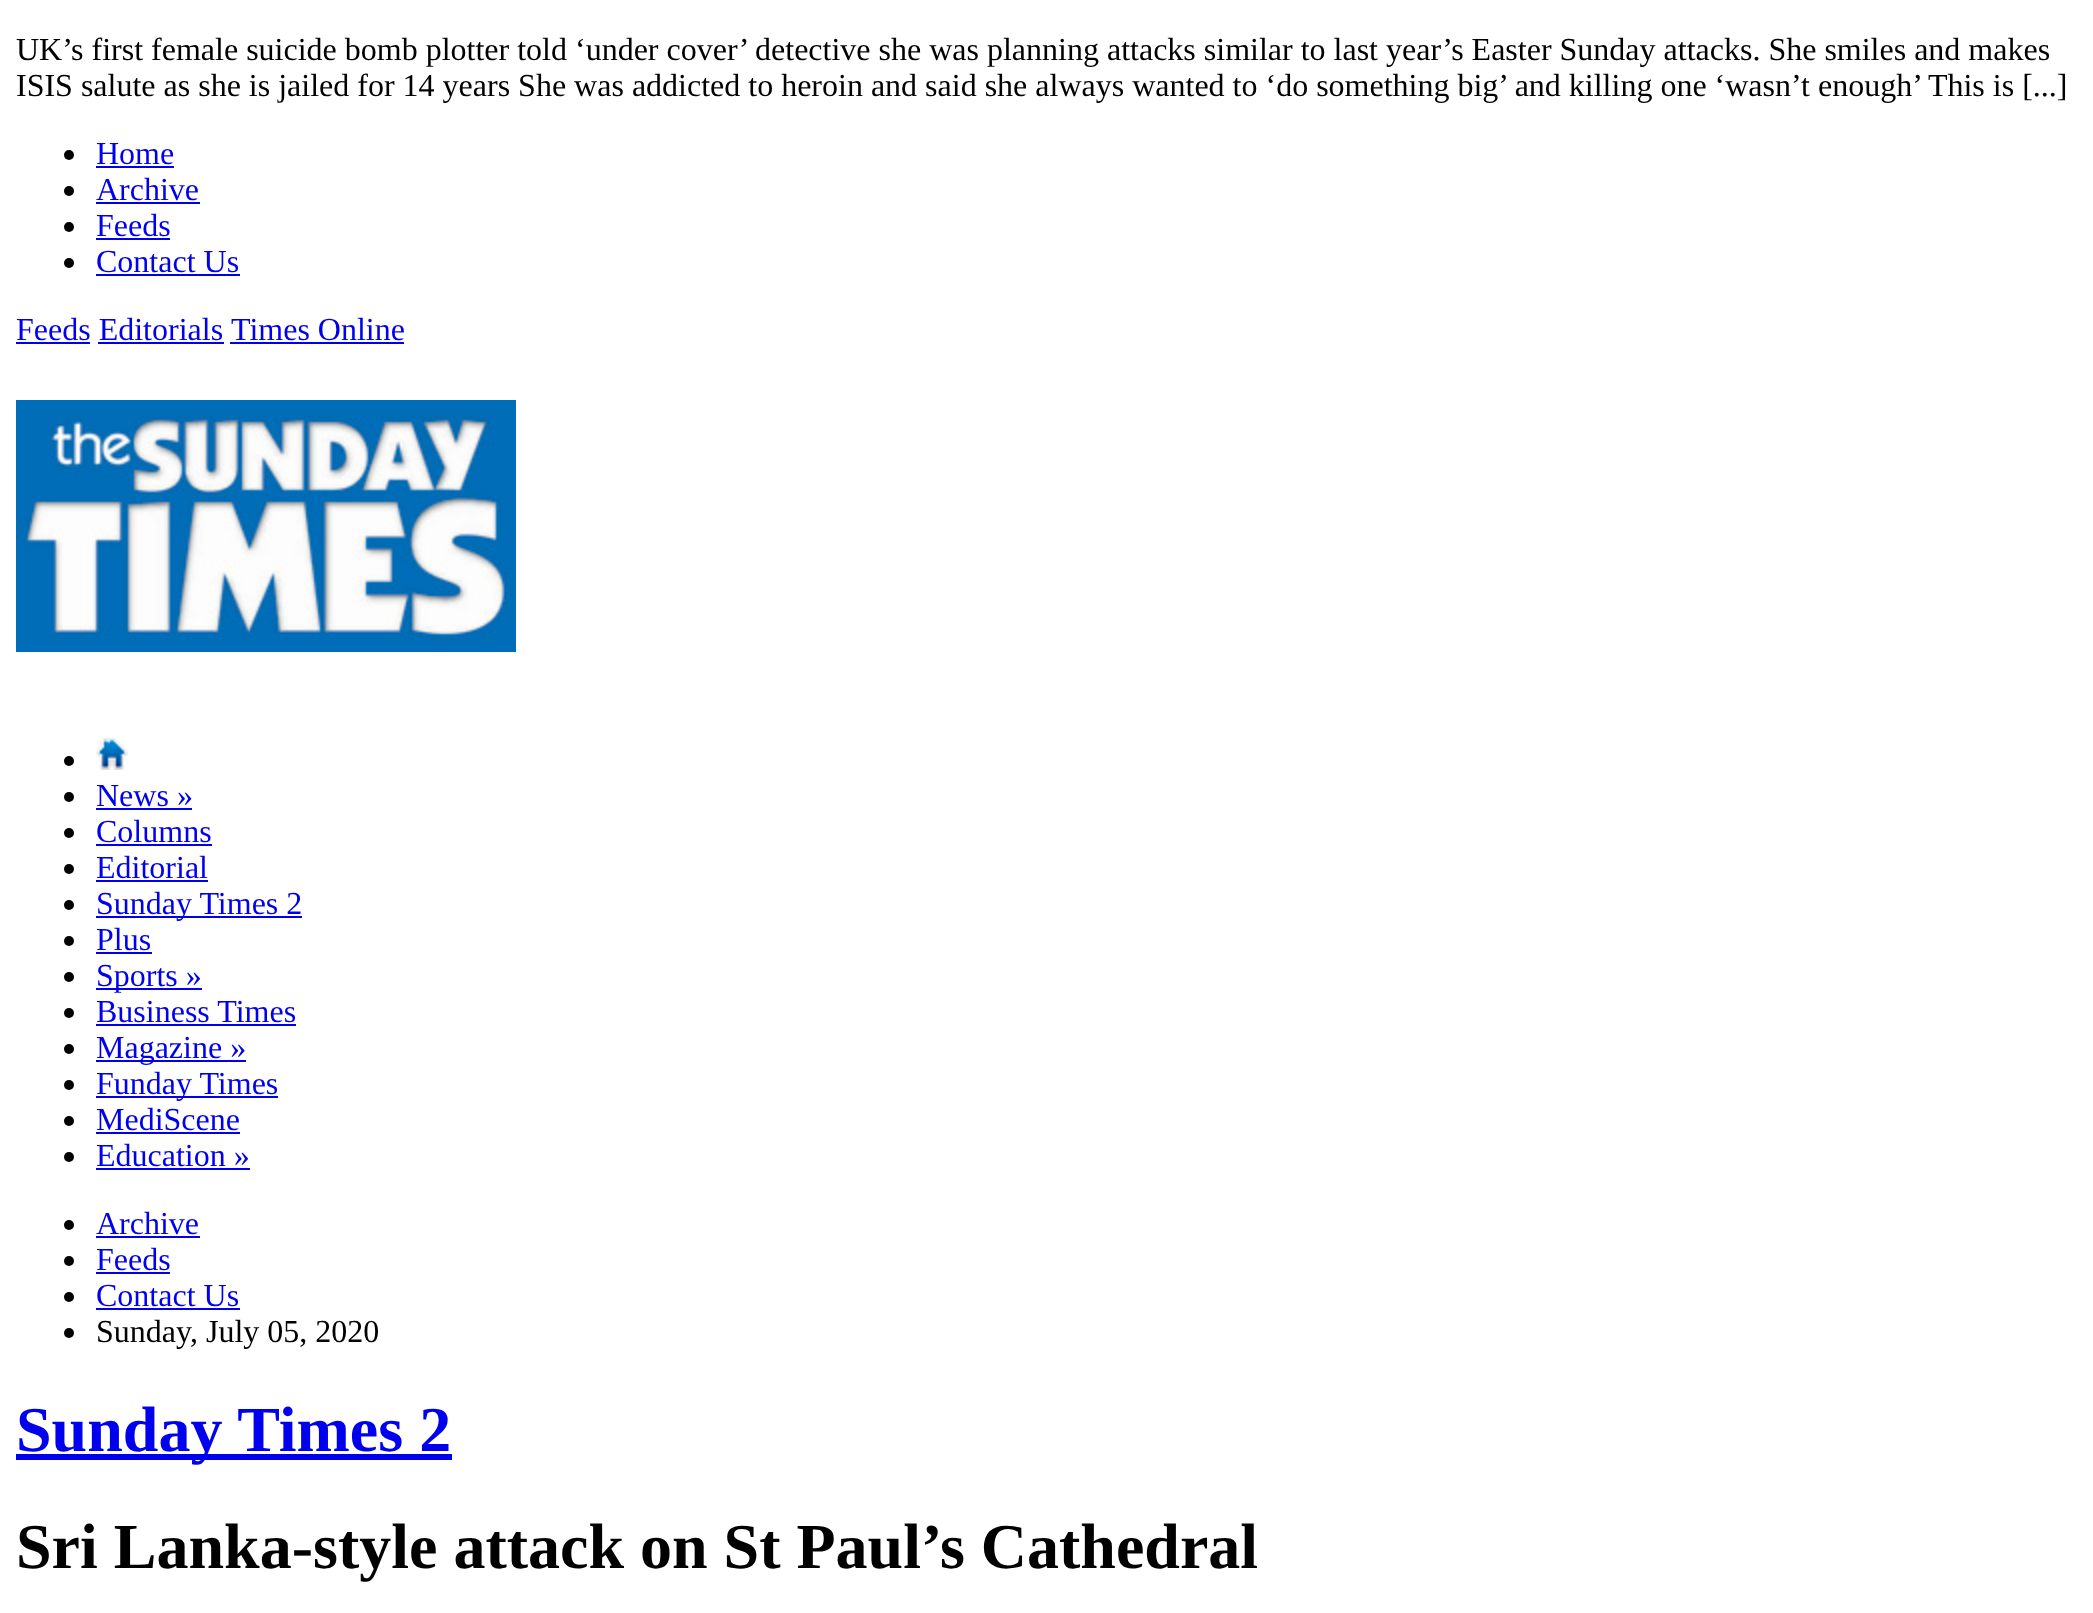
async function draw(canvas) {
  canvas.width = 2093;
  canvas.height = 1613;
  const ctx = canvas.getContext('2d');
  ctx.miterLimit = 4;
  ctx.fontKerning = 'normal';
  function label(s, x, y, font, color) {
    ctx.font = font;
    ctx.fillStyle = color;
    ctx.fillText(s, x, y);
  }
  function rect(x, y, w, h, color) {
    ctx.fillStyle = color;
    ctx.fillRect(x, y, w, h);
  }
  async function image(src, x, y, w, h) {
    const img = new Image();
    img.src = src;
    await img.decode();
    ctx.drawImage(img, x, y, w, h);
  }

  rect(0, 0, 2093, 1613, '#fff');
  label('UK’s first female suicide bomb plotter told ‘under cover’ detective she was planning attacks similar to last year’s Easter Sunday attacks. She smiles and makes', 16, 60, '32px Liberation Serif', '#000');
  label('ISIS salute as she is jailed for 14 years She was addicted to heroin and said she always wanted to ‘do something big’ and killing one ‘wasn’t enough’ This is [...]', 16, 96, '32px Liberation Serif', '#000');
  ctx.beginPath();
  ctx.arc(69, 155, 5, 0, 2 * Math.PI);
  ctx.fill();
  label('Home', 96, 164, '32px Liberation Serif', '#00e');
  rect(96, 166, 78, 2, '#00e');
  ctx.fillStyle = '#000';
  ctx.beginPath();
  ctx.arc(69, 191, 5, 0, 2 * Math.PI);
  ctx.fill();
  label('Archive', 96, 200, '32px Liberation Serif', '#00e');
  rect(96, 202, 104, 2, '#00e');
  ctx.fillStyle = '#000';
  ctx.beginPath();
  ctx.arc(69, 227, 5, 0, 2 * Math.PI);
  ctx.fill();
  label('Feeds', 96, 236, '32px Liberation Serif', '#00e');
  rect(96, 238, 74, 2, '#00e');
  ctx.fillStyle = '#000';
  ctx.beginPath();
  ctx.arc(69, 263, 5, 0, 2 * Math.PI);
  ctx.fill();
  label('Contact Us', 96, 272, '32px Liberation Serif', '#00e');
  rect(96, 274, 144, 2, '#00e');
  label('Feeds Editorials', 16, 340, '32px Liberation Serif', '#00e');
  rect(16, 342, 74, 2, '#00e');
  label('Times Online', 231, 340, '32px Liberation Serif', '#00e');
  rect(230, 342, 174, 2, '#00e');
  rect(98, 342, 126, 2, '#00e');
  await image('assets/img1.png', 16, 400, 500, 252);
  ctx.fillStyle = '#000';
  ctx.beginPath();
  ctx.arc(69, 761, 5, 0, 2 * Math.PI);
  ctx.fill();
  await image('assets/img2.png', 96, 738, 32, 32);
  ctx.beginPath();
  ctx.arc(69, 797, 5, 0, 2 * Math.PI);
  ctx.fill();
  label('News »', 96, 806, '32px Liberation Serif', '#00e');
  rect(96, 808, 96, 2, '#00e');
  ctx.fillStyle = '#000';
  ctx.beginPath();
  ctx.arc(69, 833, 5, 0, 2 * Math.PI);
  ctx.fill();
  label('Columns', 96, 842, '32px Liberation Serif', '#00e');
  rect(96, 844, 116, 2, '#00e');
  ctx.fillStyle = '#000';
  ctx.beginPath();
  ctx.arc(69, 869, 5, 0, 2 * Math.PI);
  ctx.fill();
  label('Editorial', 96, 878, '32px Liberation Serif', '#00e');
  rect(96, 880, 112, 2, '#00e');
  ctx.fillStyle = '#000';
  ctx.beginPath();
  ctx.arc(69, 905, 5, 0, 2 * Math.PI);
  ctx.fill();
  rect(96, 916, 206, 2, '#00e');
  label('Sunday Times 2', 96, 914, '32px Liberation Serif', '#00e');
  ctx.fillStyle = '#000';
  ctx.beginPath();
  ctx.arc(69, 941, 5, 0, 2 * Math.PI);
  ctx.fill();
  label('Plus', 96, 950, '32px Liberation Serif', '#00e');
  rect(96, 952, 56, 2, '#00e');
  ctx.fillStyle = '#000';
  ctx.beginPath();
  ctx.arc(69, 977, 5, 0, 2 * Math.PI);
  ctx.fill();
  rect(96, 988, 106, 2, '#00e');
  label('Sports »', 96, 986, '32px Liberation Serif', '#00e');
  ctx.fillStyle = '#000';
  ctx.beginPath();
  ctx.arc(69, 1013, 5, 0, 2 * Math.PI);
  ctx.fill();
  label('Business Times', 96, 1022, '32px Liberation Serif', '#00e');
  rect(96, 1024, 200, 2, '#00e');
  ctx.fillStyle = '#000';
  ctx.beginPath();
  ctx.arc(69, 1049, 5, 0, 2 * Math.PI);
  ctx.fill();
  rect(96, 1060, 150, 2, '#00e');
  label('Magazine »', 96, 1058, '32px Liberation Serif', '#00e');
  ctx.fillStyle = '#000';
  ctx.beginPath();
  ctx.arc(69, 1085, 5, 0, 2 * Math.PI);
  ctx.fill();
  rect(96, 1096, 182, 2, '#00e');
  label('Funday Times', 96, 1094, '32px Liberation Serif', '#00e');
  ctx.fillStyle = '#000';
  ctx.beginPath();
  ctx.arc(69, 1121, 5, 0, 2 * Math.PI);
  ctx.fill();
  label('MediScene', 96, 1130, '32px Liberation Serif', '#00e');
  rect(96, 1132, 144, 2, '#00e');
  ctx.fillStyle = '#000';
  ctx.beginPath();
  ctx.arc(69, 1157, 5, 0, 2 * Math.PI);
  ctx.fill();
  label('Education »', 96, 1166, '32px Liberation Serif', '#00e');
  rect(96, 1168, 154, 2, '#00e');
  ctx.fillStyle = '#000';
  ctx.beginPath();
  ctx.arc(69, 1225, 5, 0, 2 * Math.PI);
  ctx.fill();
  label('Archive', 96, 1234, '32px Liberation Serif', '#00e');
  rect(96, 1236, 104, 2, '#00e');
  ctx.fillStyle = '#000';
  ctx.beginPath();
  ctx.arc(69, 1261, 5, 0, 2 * Math.PI);
  ctx.fill();
  label('Feeds', 96, 1270, '32px Liberation Serif', '#00e');
  rect(96, 1272, 74, 2, '#00e');
  ctx.fillStyle = '#000';
  ctx.beginPath();
  ctx.arc(69, 1297, 5, 0, 2 * Math.PI);
  ctx.fill();
  label('Contact Us', 96, 1306, '32px Liberation Serif', '#00e');
  rect(96, 1308, 144, 2, '#00e');
  ctx.fillStyle = '#000';
  ctx.beginPath();
  ctx.arc(69, 1333, 5, 0, 2 * Math.PI);
  ctx.fill();
  label('Sunday, July 05, 2020', 96, 1342, '32px Liberation Serif', '#000');
  rect(16, 1454, 436, 6, '#00e');
  label('Sunday Times 2', 16, 1451, 'bold 64px Liberation Serif', '#00e');
  label('Sri Lanka-style attack on St Paul’s Cathedral', 16, 1568, 'bold 64px Liberation Serif', '#000');
}

draw(document.querySelector('canvas'));
